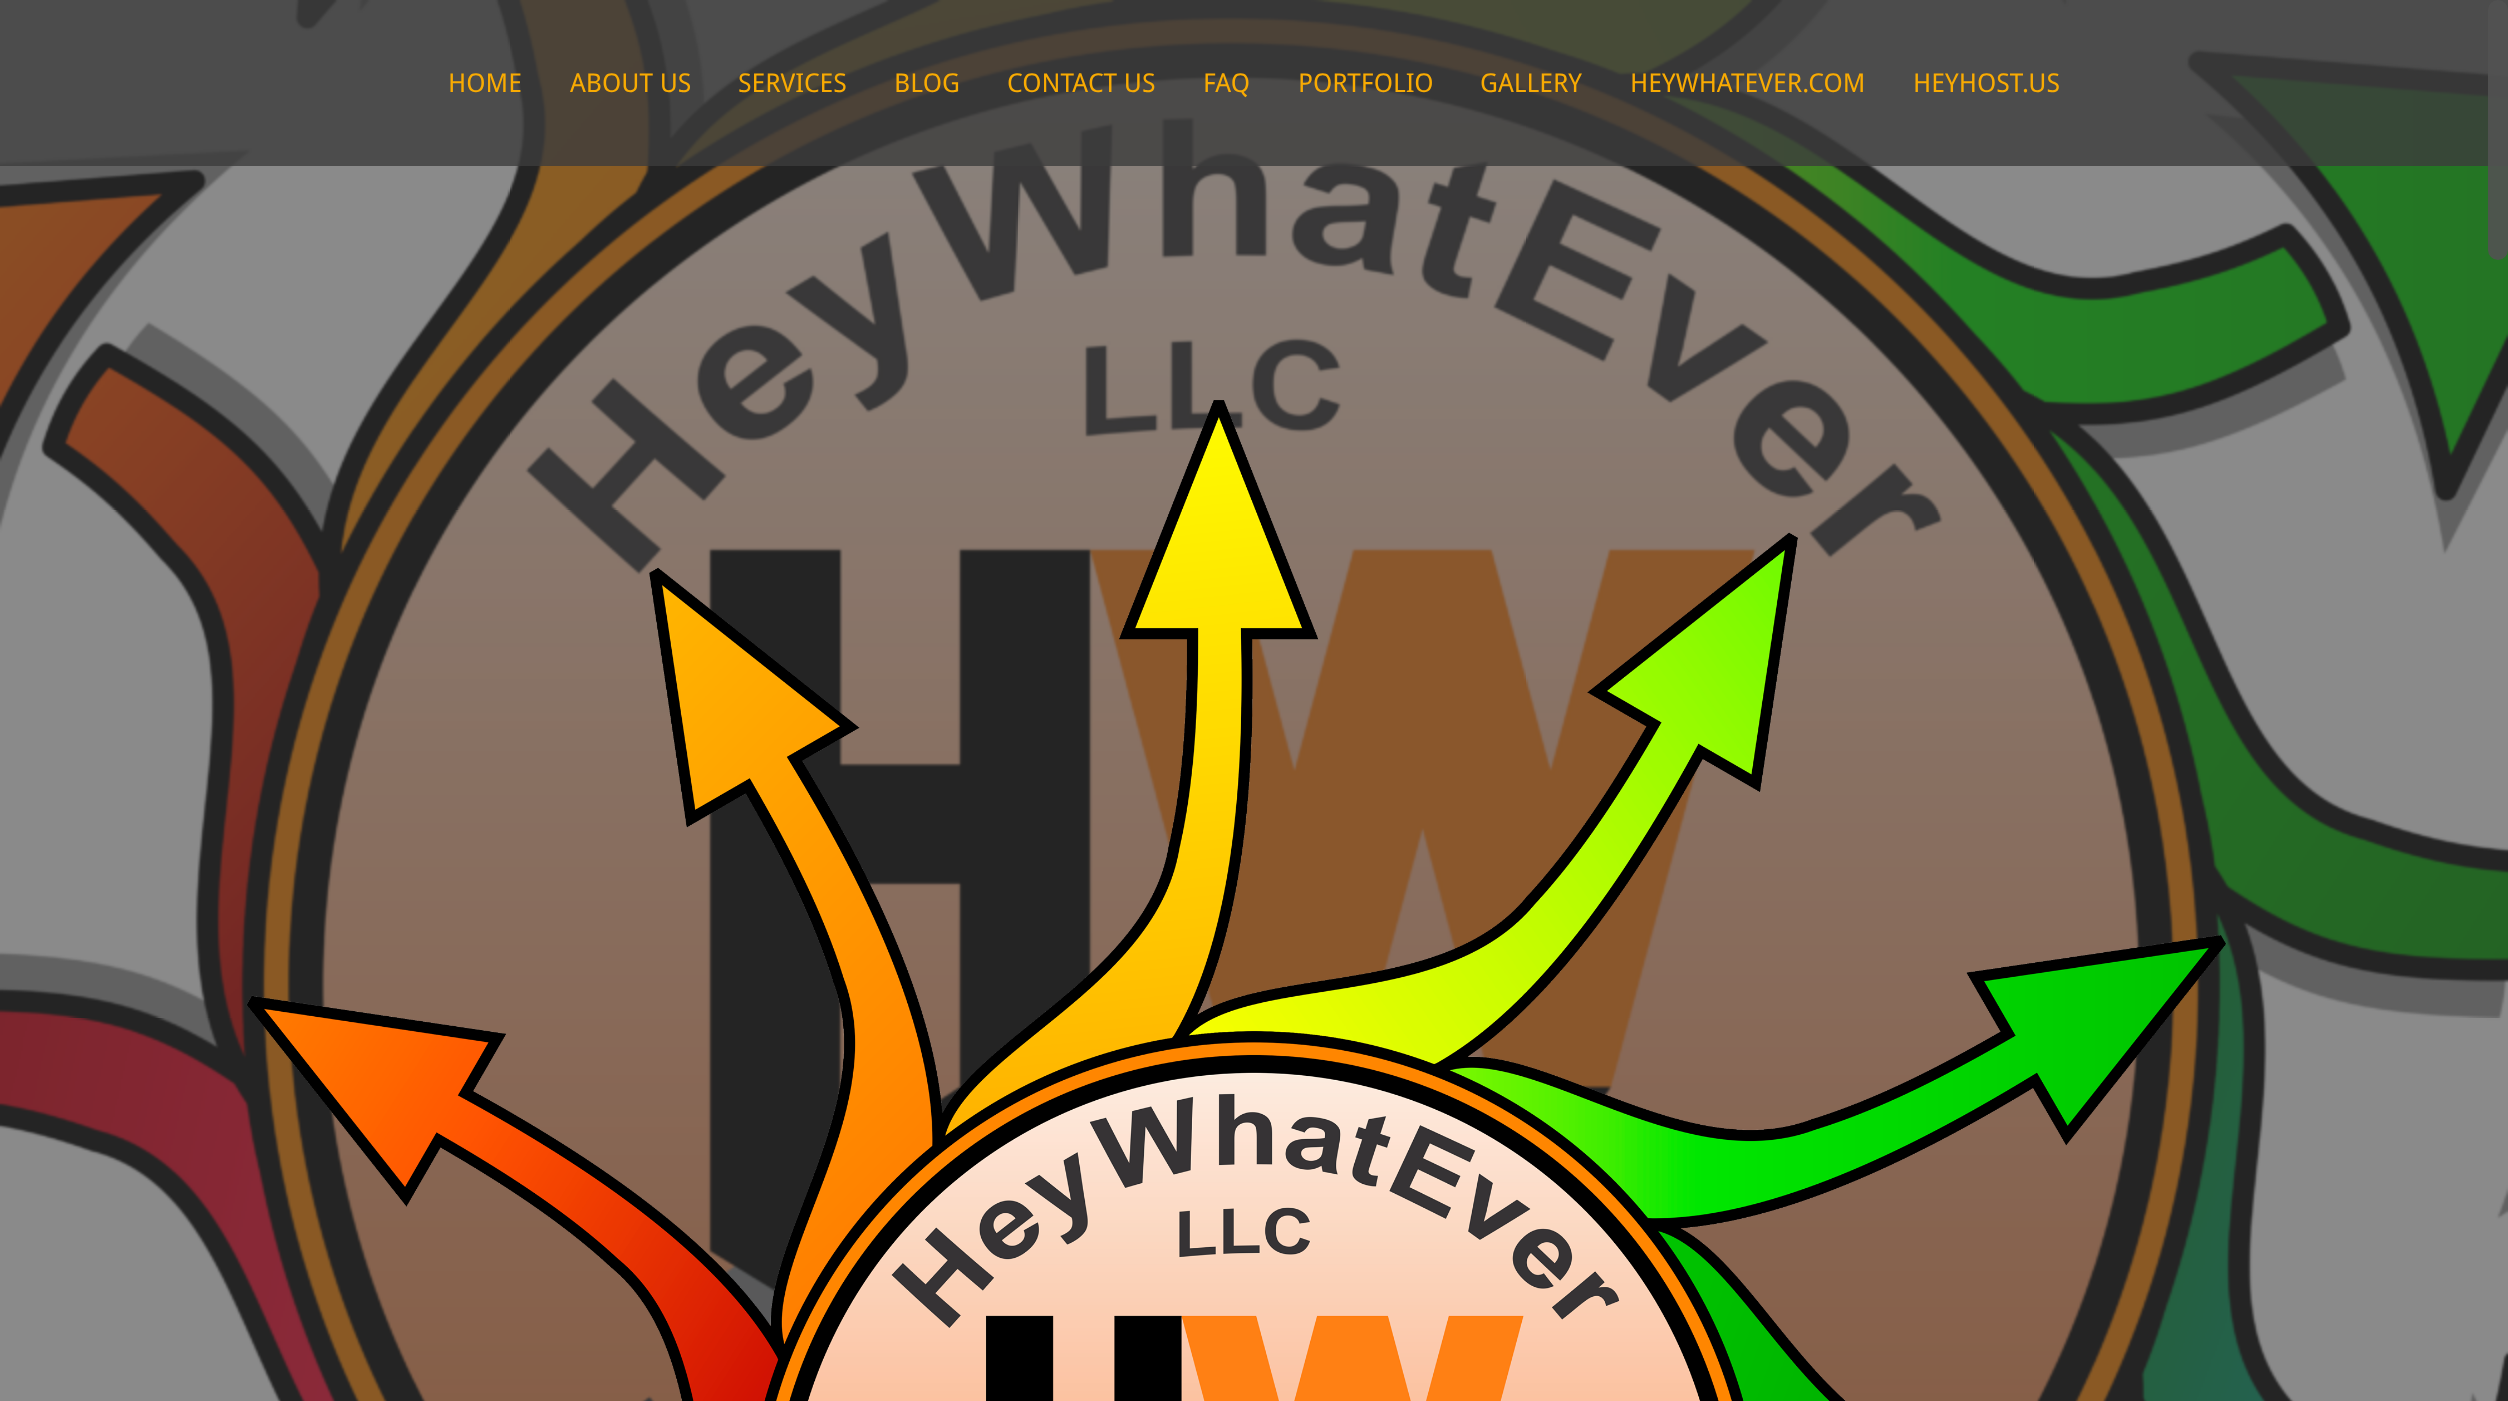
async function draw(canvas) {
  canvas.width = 2508;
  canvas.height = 1401;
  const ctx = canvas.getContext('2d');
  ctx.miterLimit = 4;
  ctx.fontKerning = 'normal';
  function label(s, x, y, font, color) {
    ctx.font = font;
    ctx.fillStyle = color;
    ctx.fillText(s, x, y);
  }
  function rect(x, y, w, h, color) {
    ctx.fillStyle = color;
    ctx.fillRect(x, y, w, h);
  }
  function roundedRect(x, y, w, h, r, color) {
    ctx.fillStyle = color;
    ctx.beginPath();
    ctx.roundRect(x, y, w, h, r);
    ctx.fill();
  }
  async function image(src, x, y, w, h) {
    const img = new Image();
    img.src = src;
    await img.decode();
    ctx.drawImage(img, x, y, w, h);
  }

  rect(0, 0, 2508, 1401, '#3c3c3c');
  await image('assets/img1.png', 0, 0, 2508, 1401);
  rect(0, 0, 2508, 166, '#3c3c3ccc');
  label('HOME', 448, 92, '26px Droid Sans', '#f9ab02');
  label('ABOUT US', 570, 92, '26px Droid Sans', '#f9ab02');
  label('SERVICES', 738, 92, '26px Droid Sans', '#f9ab02');
  label('BLOG', 894, 92, '26px Droid Sans', '#f9ab02');
  label('CONTACT US', 1007, 92, '26px Droid Sans', '#f9ab02');
  label('FAQ', 1203, 92, '26px Droid Sans', '#f9ab02');
  label('PORTFOLIO', 1298, 92, '26px Droid Sans', '#f9ab02');
  label('GALLERY', 1480, 92, '26px Droid Sans', '#f9ab02');
  label('HEYWHATEVER.COM', 1630, 92, '26px Droid Sans', '#f9ab02');
  label('HEYHOST.US', 1913, 92, '26px Droid Sans', '#f9ab02');
  await image('assets/img2.png', 246, 400, 1981, 1001);
  roundedRect(2488, 0, 20, 260, 10, '#525252e6');
}

draw(document.querySelector('canvas'));
